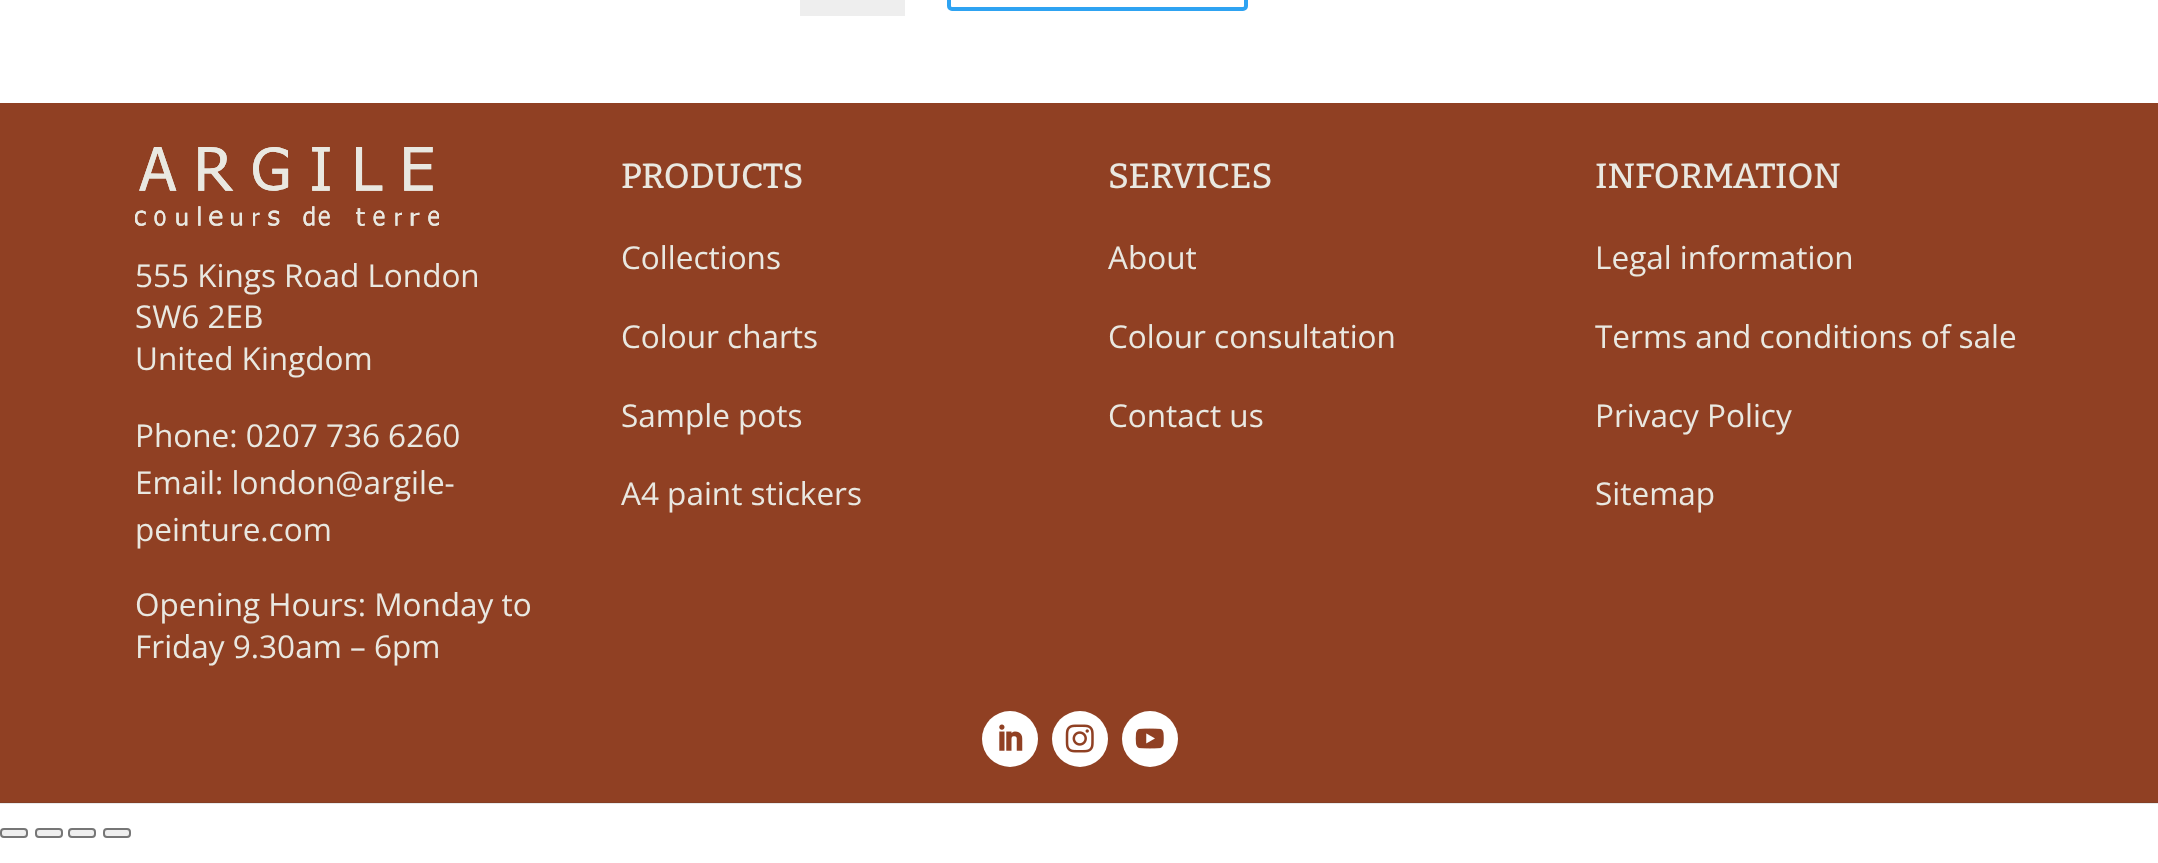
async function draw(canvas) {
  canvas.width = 2158;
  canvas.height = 863;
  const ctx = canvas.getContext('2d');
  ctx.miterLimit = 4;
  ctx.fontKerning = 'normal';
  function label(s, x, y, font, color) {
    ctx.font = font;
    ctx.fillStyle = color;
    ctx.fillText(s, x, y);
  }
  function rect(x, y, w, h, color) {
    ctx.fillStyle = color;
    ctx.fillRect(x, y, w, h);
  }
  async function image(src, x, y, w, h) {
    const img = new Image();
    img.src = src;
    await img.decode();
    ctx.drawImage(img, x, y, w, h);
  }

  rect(0, 0, 2158, 863, '#fff');
  rect(0, 803, 2158, 1, '#e8eaeb');
  rect(800, 0, 105, 16, '#eee');
  ctx.beginPath();
  ctx.roundRect(949, -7, 297, 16, 3);
  ctx.strokeStyle = '#2ea3f2';
  ctx.lineWidth = 4;
  ctx.stroke();
  rect(0, 103, 2158, 699, '#904023');
  rect(0, 802, 2158, 1, '#843e25');
  await image('assets/img1.png', 135, 147, 304, 79);
  label('555 Kings Road London', 135, 287, '31.5px Open Sans', '#e9e8e1');
  label('SW6 2EB', 135, 328, '31.5px Open Sans', '#e9e8e1');
  label('United Kingdom', 135, 370, '31.5px Open Sans', '#e9e8e1');
  label('Phone: 0207 736 6260', 135, 447, '31.5px Open Sans', '#e9e8e1');
  label('Email: london@argile-', 135, 494, '31.5px Open Sans', '#e9e8e1');
  label('peinture.com', 135, 541, '31.5px Open Sans', '#e9e8e1');
  label('Opening Hours: Monday to', 135, 616, '31.5px Open Sans', '#e9e8e1');
  label('Friday 9.30am – 6pm', 135, 658, '31.5px Open Sans', '#e9e8e1');
  label('PRODUCTS', 621, 188, '500 35px Bitter', '#e9e8e1');
  label('Collections', 621, 269, '31.5px Open Sans', '#e9e8e1');
  label('Colour charts', 621, 348, '31.5px Open Sans', '#e9e8e1');
  label('Sample pots', 621, 427, '31.5px Open Sans', '#e9e8e1');
  label('A4 paint stickers', 621, 505, '31.5px Open Sans', '#e9e8e1');
  label('SERVICES', 1108, 188, '500 35px Bitter', '#e9e8e1');
  label('About', 1108, 269, '31.5px Open Sans', '#e9e8e1');
  label('Colour consultation', 1108, 348, '31.5px Open Sans', '#e9e8e1');
  label('Contact us', 1108, 427, '31.5px Open Sans', '#e9e8e1');
  label('INFORMATION', 1595, 188, '500 35px Bitter', '#e9e8e1');
  label('Legal information', 1595, 269, '31.5px Open Sans', '#e9e8e1');
  label('Terms and conditions of sale', 1595, 348, '31.5px Open Sans', '#e9e8e1');
  label('Privacy Policy', 1595, 427, '31.5px Open Sans', '#e9e8e1');
  label('Sitemap', 1595, 505, '31.5px Open Sans', '#e9e8e1');
  ctx.fillStyle = '#fff';
  ctx.beginPath();
  ctx.arc(1010, 739, 28, 0, 2 * Math.PI);
  ctx.fill();
  await image('assets/img2.png', 999, 724, 24, 27);
  ctx.beginPath();
  ctx.arc(1080, 739, 28, 0, 2 * Math.PI);
  ctx.fill();
  await image('assets/img3.png', 1065, 724, 29, 29);
  ctx.beginPath();
  ctx.arc(1150, 739, 28, 0, 2 * Math.PI);
  ctx.fill();
  await image('assets/img4.png', 1135, 728, 29, 21);
  ctx.fillStyle = '#efefef';
  ctx.beginPath();
  ctx.roundRect(1, 829, 26, 8, 3);
  ctx.fill();
  ctx.strokeStyle = '#767676';
  ctx.lineWidth = 2;
  ctx.stroke();
  ctx.beginPath();
  ctx.roundRect(36, 829, 26, 8, 3);
  ctx.fill();
  ctx.stroke();
  ctx.beginPath();
  ctx.roundRect(69, 829, 26, 8, 3);
  ctx.fill();
  ctx.stroke();
  ctx.beginPath();
  ctx.roundRect(104, 829, 26, 8, 3);
  ctx.fill();
  ctx.stroke();
}

draw(document.querySelector('canvas'));
